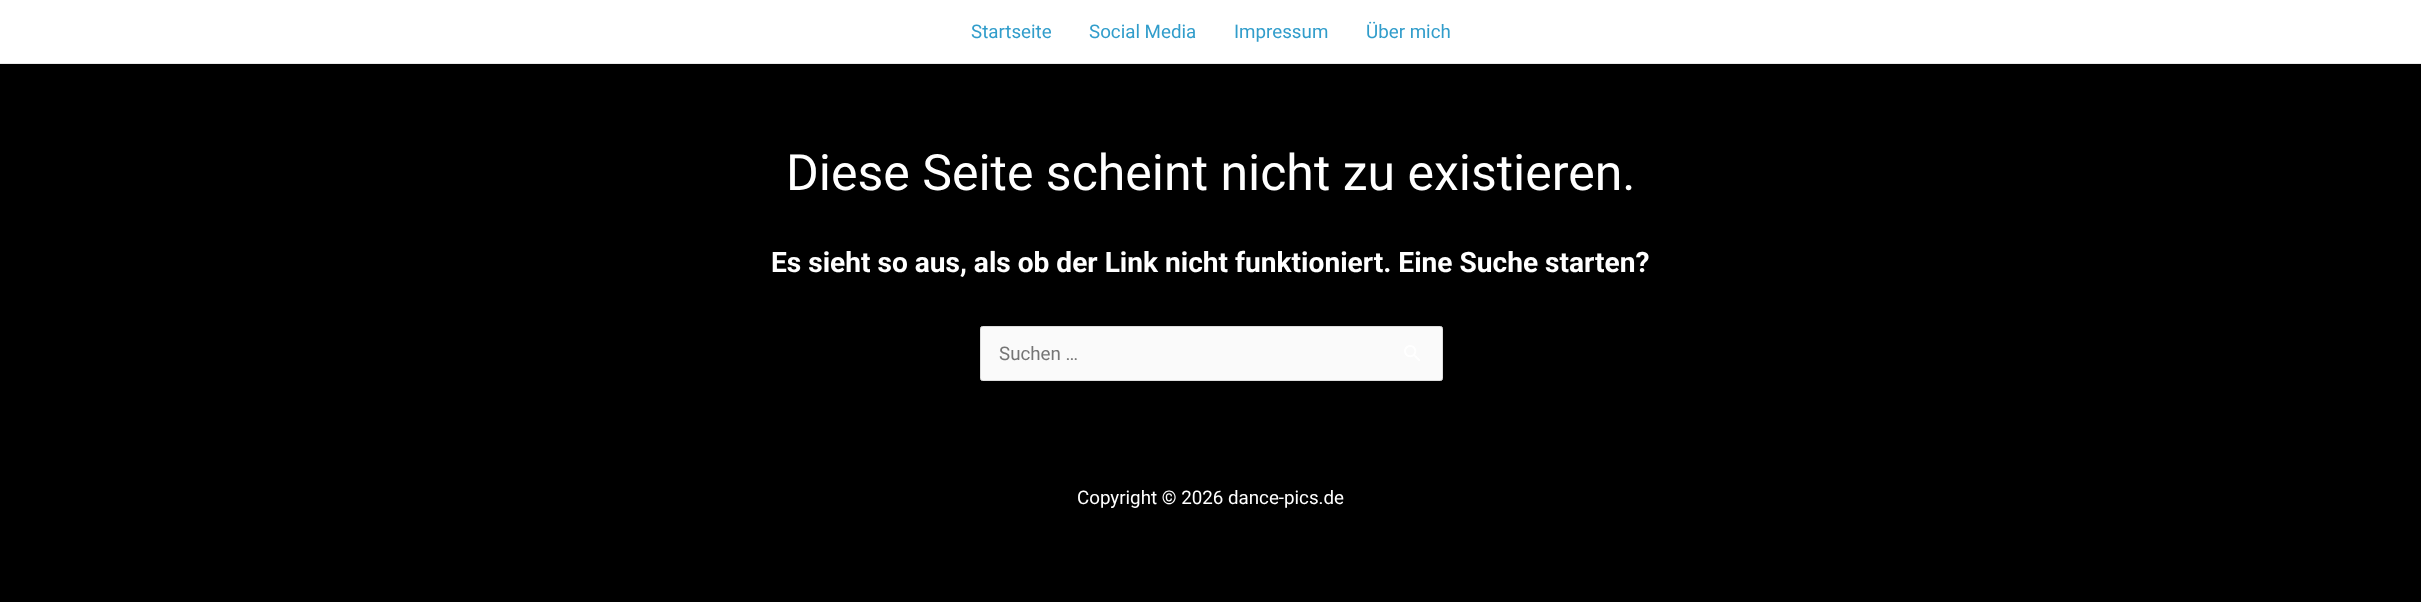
async function draw(canvas) {
  canvas.width = 2421;
  canvas.height = 602;
  const ctx = canvas.getContext('2d');
  ctx.miterLimit = 4;
  ctx.fontKerning = 'normal';
  function label(s, x, y, font, color) {
    ctx.font = font;
    ctx.fillStyle = color;
    ctx.fillText(s, x, y);
  }
  function rect(x, y, w, h, color) {
    ctx.fillStyle = color;
    ctx.fillRect(x, y, w, h);
  }
  async function image(src, x, y, w, h) {
    const img = new Image();
    img.src = src;
    await img.decode();
    ctx.drawImage(img, x, y, w, h);
  }

  rect(0, 0, 2421, 602, '#000');
  rect(0, 0, 2421, 63, '#fff');
  rect(0, 63, 2421, 1, '#eaeaea');
  label('Startseite', 971, 38, '18.75px Roboto', '#319dcb');
  label('Social Media', 1089, 38, '18.75px Roboto', '#319dcb');
  label('Impressum', 1234, 38, '18.75px Roboto', '#319dcb');
  label('Über mich', 1366, 38, '18.75px Roboto', '#319dcb');
  label('Diese Seite scheint nicht zu existieren.', 786, 190, '50px Roboto', '#fff');
  label('Es sieht so aus, als ob der Link nicht funktioniert. Eine Suche starten?', 771, 272, 'bold 28.1px Roboto', '#fff');
  ctx.fillStyle = '#fafafa';
  ctx.beginPath();
  ctx.roundRect(980.5, 326.5, 462, 54, 2);
  ctx.fill();
  ctx.strokeStyle = '#ddd';
  ctx.stroke();
  label('Suchen …', 999, 360, '18.75px Roboto', '#757575');
  await image('assets/img1.png', 1404, 345, 16, 16);
  label('Copyright © 2026 dance-pics.de', 1077, 504, '18.75px Roboto', '#fff');
}

draw(document.querySelector('canvas'));
